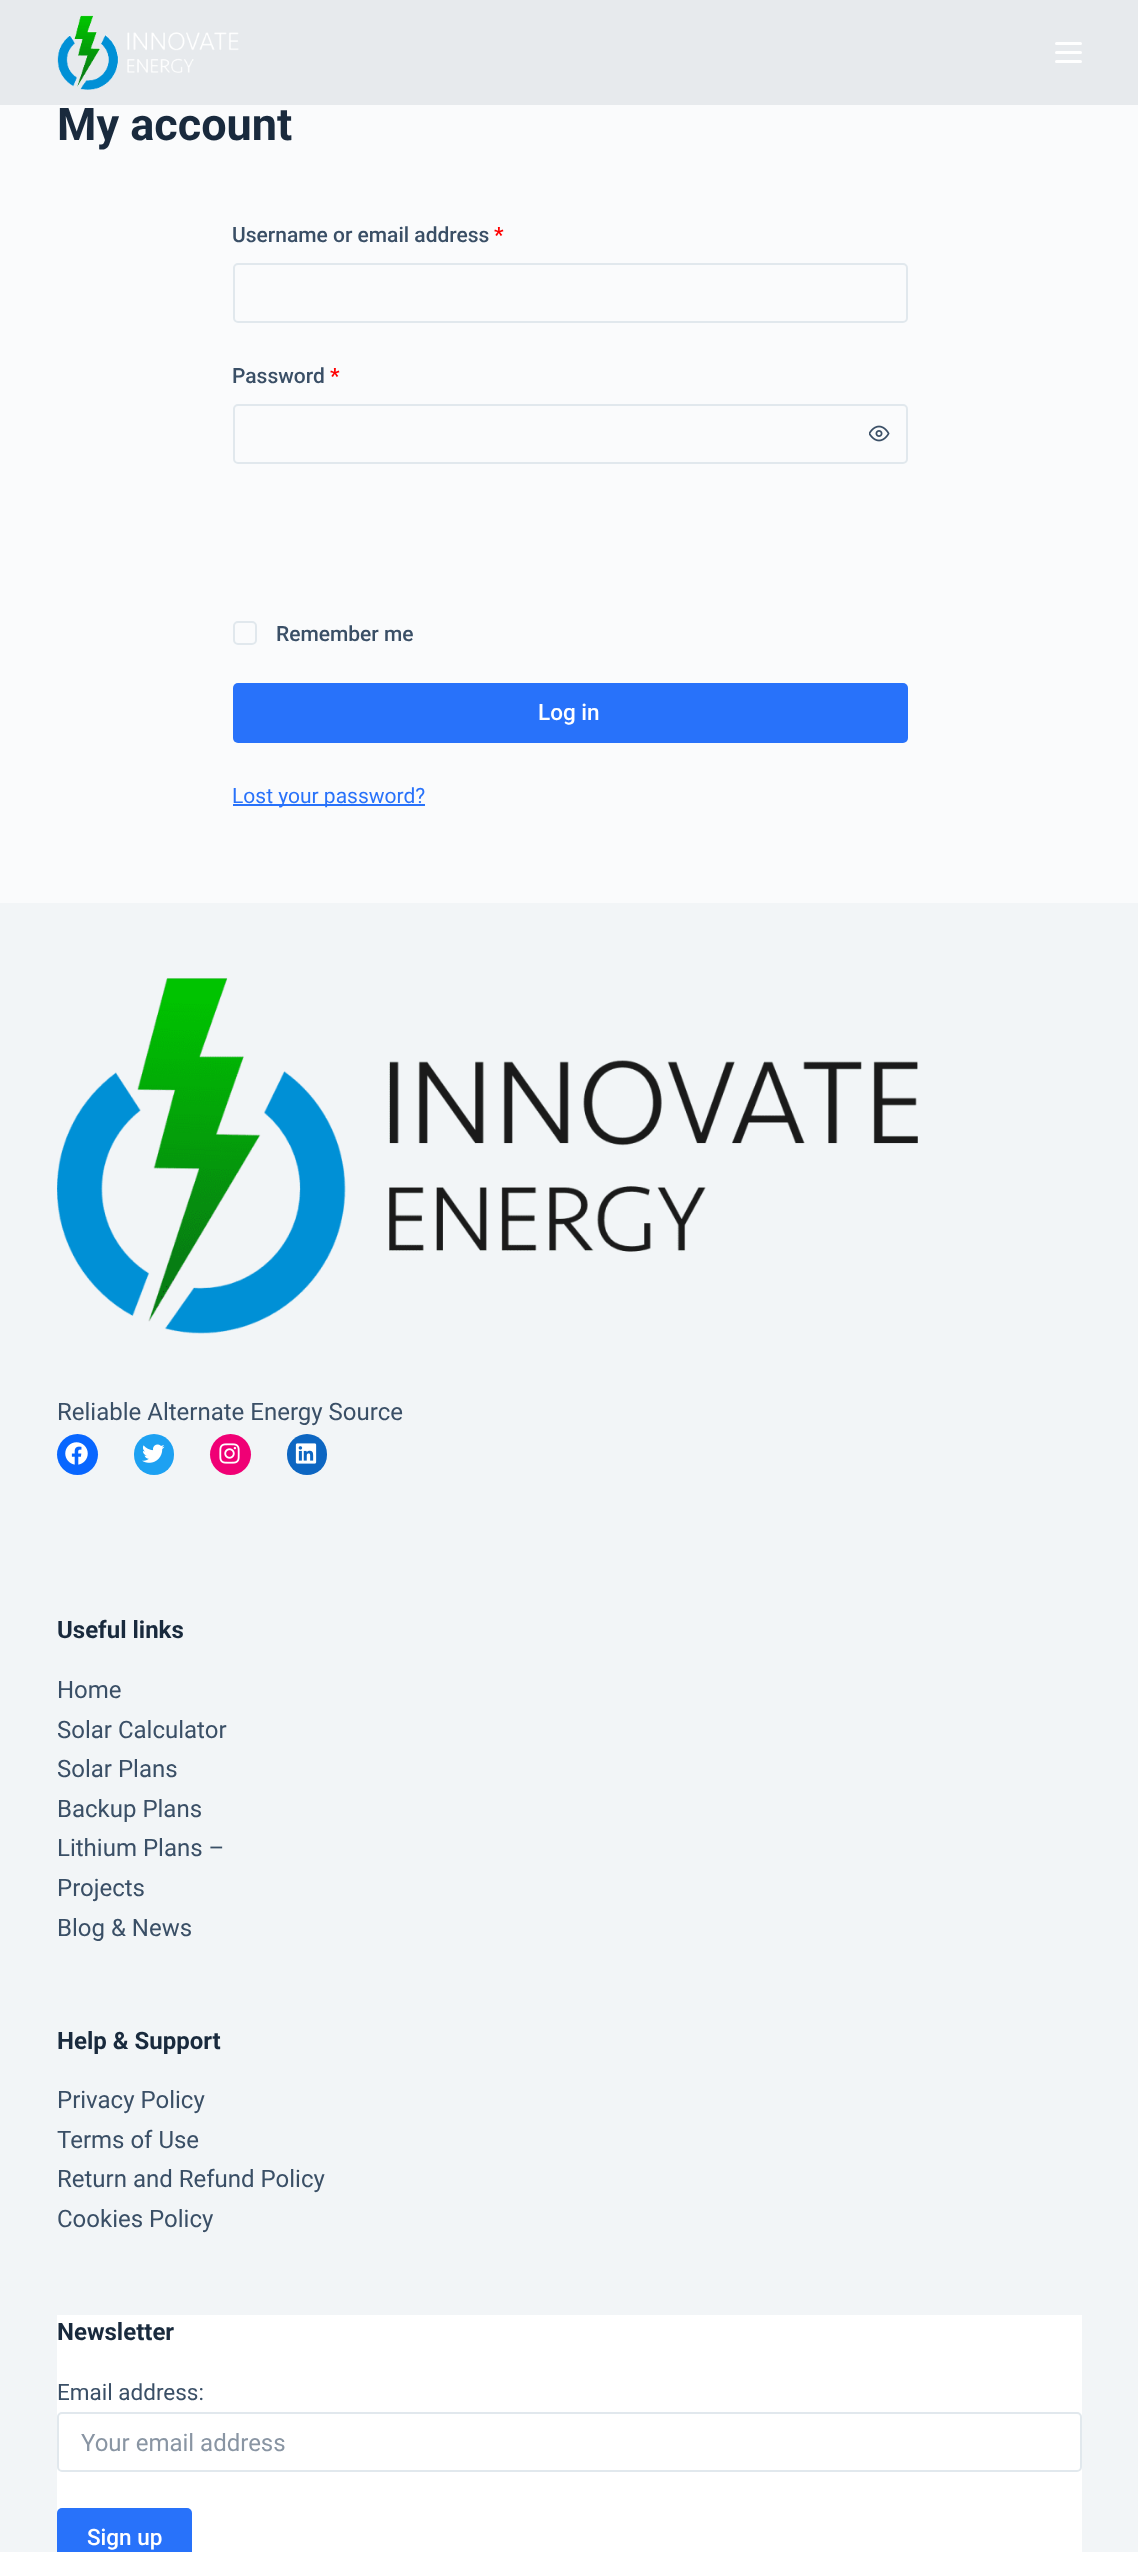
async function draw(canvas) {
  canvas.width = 1138;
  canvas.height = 2552;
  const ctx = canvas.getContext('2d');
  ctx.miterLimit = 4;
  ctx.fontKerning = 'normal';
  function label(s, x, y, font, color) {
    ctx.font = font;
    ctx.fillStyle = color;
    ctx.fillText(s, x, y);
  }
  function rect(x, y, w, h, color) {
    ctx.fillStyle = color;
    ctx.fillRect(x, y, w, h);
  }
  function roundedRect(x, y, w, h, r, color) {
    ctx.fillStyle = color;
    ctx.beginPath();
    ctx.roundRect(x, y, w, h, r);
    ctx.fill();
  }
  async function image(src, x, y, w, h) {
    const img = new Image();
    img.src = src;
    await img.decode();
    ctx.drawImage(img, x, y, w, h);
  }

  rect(0, 0, 1138, 2552, '#fafbfc');
  rect(0, 0, 1138, 105, '#e7eaed');
  await image('assets/img1.png', 57, 15, 182, 75);
  roundedRect(1055, 42, 27, 3, 1.5, '#fff');
  roundedRect(1055, 51, 27, 3, 1.5, '#fff');
  roundedRect(1055, 60, 27, 3, 1.5, '#fff');
  label('My account', 57, 140, 'bold 45px Roboto', '#192a3d');
  label('Username or email address', 232, 242, '500 21px Roboto', '#3a4f66');
  label('*', 494, 242, 'bold 21px Roboto', '#f00');
  ctx.beginPath();
  ctx.roundRect(234, 264, 673, 58, 4);
  ctx.strokeStyle = '#e1e8ed';
  ctx.lineWidth = 2;
  ctx.stroke();
  label('Password', 232, 383, '500 21px Roboto', '#3a4f66');
  label('*', 330, 383, 'bold 21px Roboto', '#f00');
  ctx.beginPath();
  ctx.roundRect(234, 405, 673, 58, 4);
  ctx.stroke();
  await image('assets/img2.png', 869, 425, 21, 17);
  ctx.beginPath();
  ctx.roundRect(234, 622, 22, 22, 4);
  ctx.stroke();
  label('Remember me', 276, 641, '500 21px Roboto', '#3a4f66');
  roundedRect(233, 683, 675, 60, 5, '#2872fa');
  label('Log in', 538, 720, '500 22.5px Roboto', '#fff');
  rect(233, 804, 192, 2, '#2872fa');
  label('Lost your password?', 232, 803, '21px Roboto', '#2872fa');
  rect(0, 903, 1138, 1649, '#f2f5f7');
  await image('assets/img3.png', 57, 978, 861, 356);
  label('Reliable Alternate Energy Source', 57, 1420, '24px Roboto', '#3a4f66');
  ctx.fillStyle = '#0866ff';
  ctx.beginPath();
  ctx.arc(77.5, 1454.5, 20.5, 0, 2 * Math.PI);
  ctx.fill();
  await image('assets/img4.png', 65, 1442, 23, 23);
  roundedRect(134, 1434, 40, 41, 20, '#1da1f2');
  await image('assets/img5.png', 142, 1444, 23, 19);
  ctx.fillStyle = '#f00075';
  ctx.beginPath();
  ctx.arc(230.5, 1454.5, 20.5, 0, 2 * Math.PI);
  ctx.fill();
  await image('assets/img6.png', 219, 1443, 21, 21);
  roundedRect(287, 1434, 40, 41, 20, '#0d66c2');
  await image('assets/img7.png', 295, 1443, 22, 21);
  label('Useful links', 57, 1638, 'bold 24px Roboto', '#192a3d');
  label('Home', 57, 1698, '24px Roboto', '#3a4f66');
  label('Solar Calculator', 57, 1738, '24px Roboto', '#3a4f66');
  label('Solar Plans', 57, 1777, '24px Roboto', '#3a4f66');
  label('Backup Plans', 57, 1817, '24px Roboto', '#3a4f66');
  label('Lithium Plans –', 57, 1856, '24px Roboto', '#3a4f66');
  label('Projects', 57, 1896, '24px Roboto', '#3a4f66');
  label('Blog & News', 57, 1936, '24px Roboto', '#3a4f66');
  label('Help & Support', 57, 2049, 'bold 24px Roboto', '#192a3d');
  label('Privacy Policy', 57, 2108, '24px Roboto', '#3a4f66');
  label('Terms of Use', 57, 2148, '24px Roboto', '#3a4f66');
  label('Return and Refund Policy', 57, 2187, '24px Roboto', '#3a4f66');
  label('Cookies Policy', 57, 2227, '24px Roboto', '#3a4f66');
  rect(57, 2315, 1025, 237, '#fff');
  label('Newsletter', 57, 2340, 'bold 24px Roboto', '#192a3d');
  label('Email address:', 57, 2400, '22.5px Roboto', '#3a4f66');
  ctx.beginPath();
  ctx.roundRect(58, 2413, 1023, 58, 4);
  ctx.stroke();
  label('Your email address', 81, 2451, '24px Roboto', '#8995a3');
  roundedRect(57, 2508, 135, 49, 5, '#2872fa');
  label('Sign up', 87, 2545, '500 22.5px Roboto', '#fff');
}

draw(document.querySelector('canvas'));
